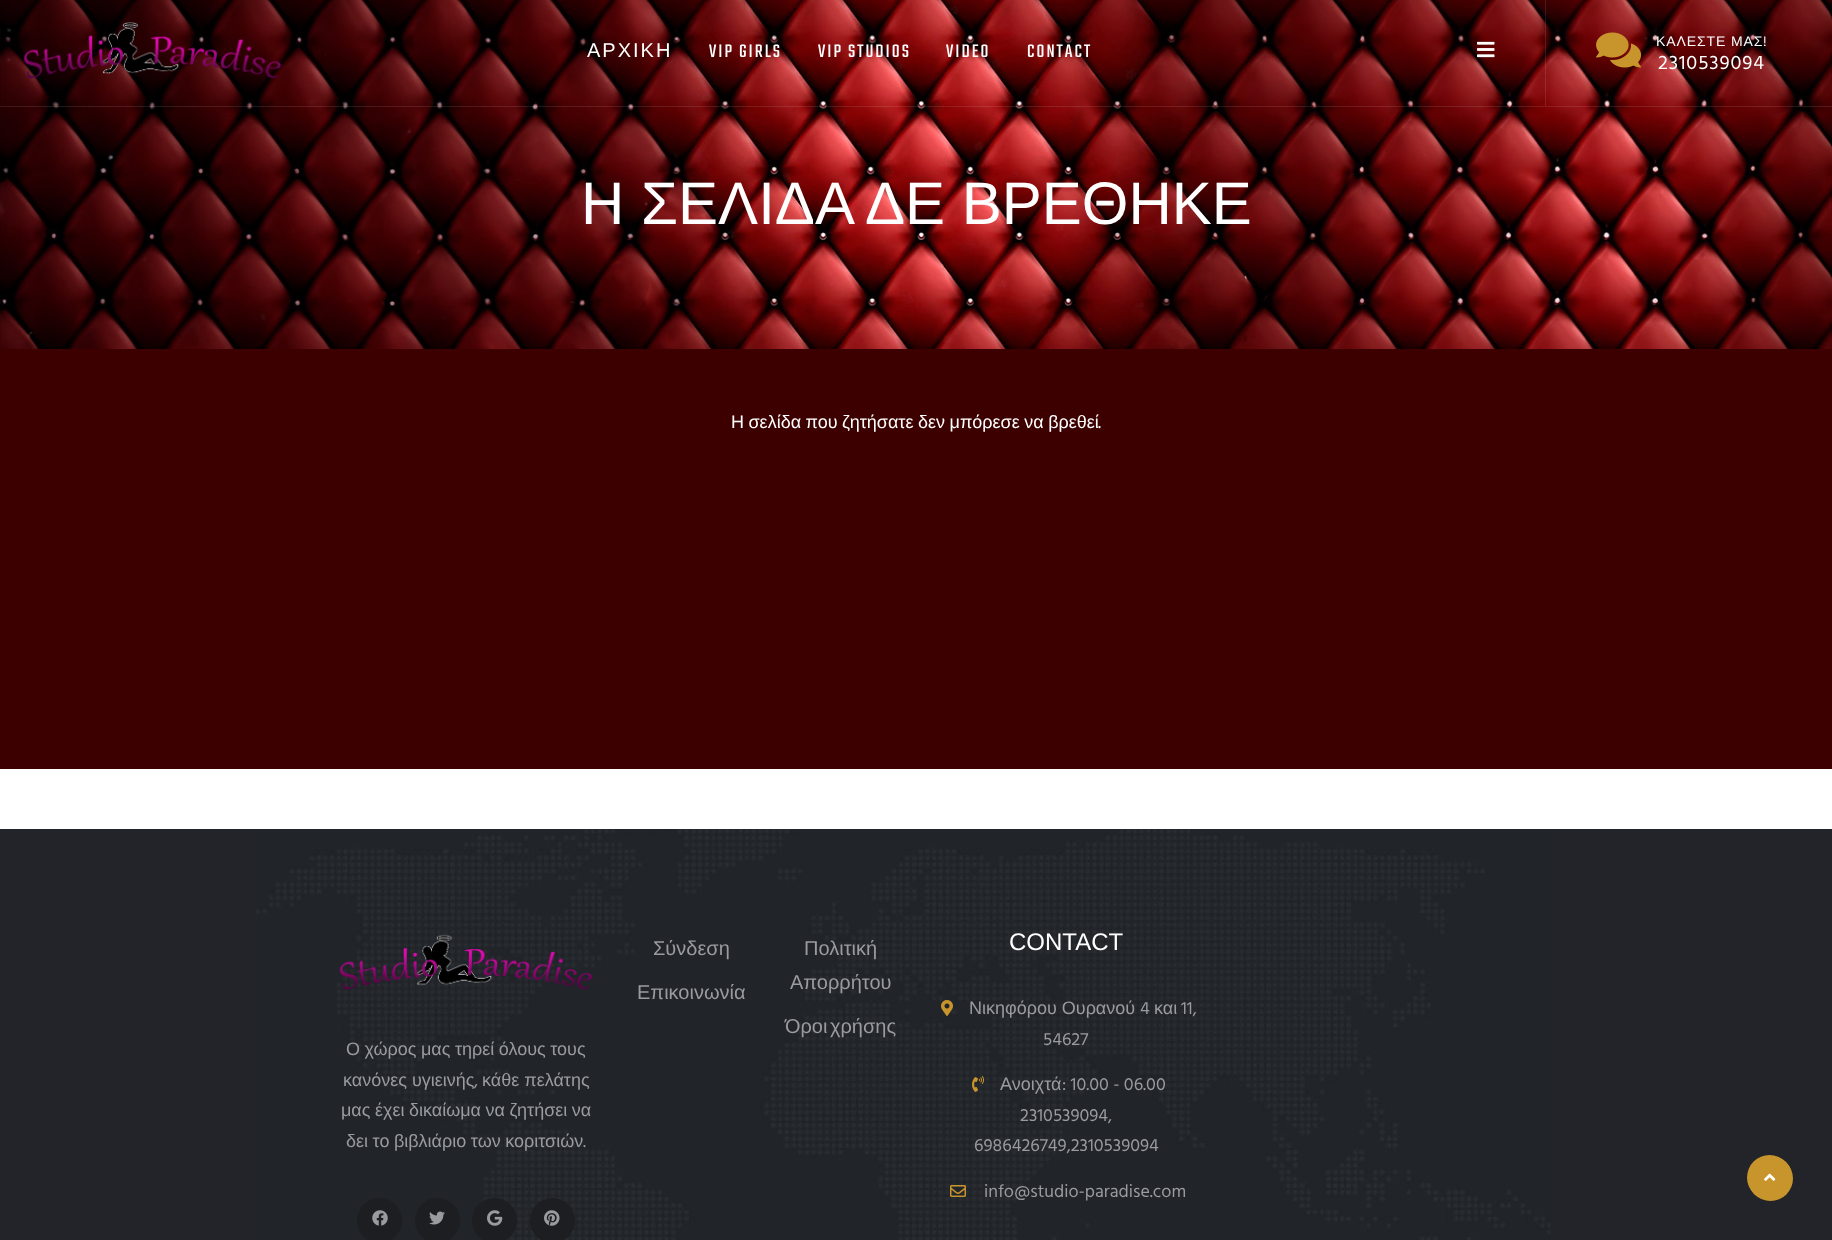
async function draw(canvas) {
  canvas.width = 1832;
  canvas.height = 1240;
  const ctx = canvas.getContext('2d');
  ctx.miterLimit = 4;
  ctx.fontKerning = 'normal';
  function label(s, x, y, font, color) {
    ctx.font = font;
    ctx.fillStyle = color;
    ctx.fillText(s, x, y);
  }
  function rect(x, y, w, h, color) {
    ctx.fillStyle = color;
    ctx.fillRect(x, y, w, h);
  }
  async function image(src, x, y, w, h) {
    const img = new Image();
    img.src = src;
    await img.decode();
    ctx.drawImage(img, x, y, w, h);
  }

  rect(0, 0, 1832, 1240, '#fff');
  rect(0, 349, 1832, 420, '#3d0000');
  await image('assets/img4.png', 0, 0, 1832, 349);
  rect(0, 106, 1832, 1, '#ffffff1a');
  await image('assets/img1.png', 23, 22, 259, 57);
  ctx.letterSpacing = '2px';
  label('ΑΡΧΙΚΗ', 587, 57, '20px Liberation Sans', '#fff');
  label('VIP GIRLS', 709, 57, '20px Teko', '#fff');
  label('VIP STUDIOS', 818, 57, '20px Teko', '#fff');
  label('VIDEO', 946, 57, '20px Teko', '#fff');
  label('CONTACT', 1027, 57, '20px Teko', '#fff');
  await image('assets/img2.png', 1477, 41, 18, 17);
  rect(1545, 0, 1, 106, '#ffffff1a');
  await image('assets/img3.png', 1596, 32, 46, 36);
  ctx.letterSpacing = '0.9px';
  label('ΚΑΛΕΣΤΕ ΜΑΣ', 1656, 46, '14px Liberation Sans', '#fff');
  label('!', 1763, 46, '14px Hind', '#fff');
  label('2310539094', 1658, 69, '20px Hind', '#fff');
  ctx.letterSpacing = '0px';
  label('Η ΣΕΛΙΔΑ ΔΕ ΒΡΕΘΗΚΕ', 581, 224, '60px Liberation Sans', '#fff');
  ctx.wordSpacing = '-0.5px';
  label('Η σελίδα που ζητήσατε δεν μπόρεσε να βρεθεί', 731, 428, '18px Liberation Sans', '#fff');
  ctx.wordSpacing = '0px';
  label('.', 1098, 428, '18px Hind', '#fff');
  rect(0, 829, 1832, 411, '#222429');
  await image('assets/img5.png', 256, 829, 1295, 411);
  label('Σύνδεση', 653, 955, '20px Liberation Sans', '#999b9f');
  label('Επικοινωνία', 637, 999, '20px Liberation Sans', '#999b9f');
  label('Πολιτική', 804, 955, '20px Liberation Sans', '#999b9f');
  label('Απορρήτου', 790, 989, '20px Liberation Sans', '#999b9f');
  ctx.wordSpacing = '-3px';
  label('Όροι χρήσης', 785, 1033, '20px Liberation Sans', '#999b9f');
  ctx.wordSpacing = '0px';
  label('CONTACT', 1009, 950, '24px Liberation Sans', '#fff');
  await image('assets/img6.png', 941, 1000, 12, 16);
  label('Νικηφόρου Ουρανού', 969, 1014, '18px Liberation Sans', '#999b9f');
  label('4', 1140, 1014, '18px Hind', '#999b9f');
  label('και', 1154, 1014, '18px Liberation Sans', '#999b9f');
  label('11,', 1181, 1014, '18px Hind', '#999b9f');
  label('54627', 1043, 1045, '18px Hind', '#999b9f');
  await image('assets/img7.png', 972, 1076, 12, 16);
  label('Ανοιχτά', 1000, 1090, '18px Liberation Sans', '#999b9f');
  label(': 10.00 - 06.00', 1062, 1090, '18px Hind', '#999b9f');
  label('2310539094,', 1020, 1121, '18px Hind', '#999b9f');
  label('6986426749,2310539094', 974, 1151, '18px Hind', '#999b9f');
  await image('assets/img8.png', 950, 1185, 16, 12);
  label('info@studio-paradise.com', 984, 1197, '18px Hind', '#999b9f');
  await image('assets/img9.png', 339, 934, 254, 56);
  ctx.wordSpacing = '-0.5px';
  label('Ο χώρος μας τηρεί όλους τους', 346, 1055, '18px Liberation Sans', '#999b9f');
  ctx.wordSpacing = '0px';
  label('κανόνες υγιεινής', 343, 1086, '18px Liberation Sans', '#999b9f');
  label(',', 474, 1086, '18px Hind', '#999b9f');
  label('κάθε πελάτης', 482, 1086, '18px Liberation Sans', '#999b9f');
  ctx.wordSpacing = '-0.5px';
  label('μας έχει δικαίωμα να ζητήσει να', 341, 1116, '18px Liberation Sans', '#999b9f');
  label('δει το βιβλιάριο των κοριτσιών', 346, 1147, '18px Liberation Sans', '#999b9f');
  ctx.wordSpacing = '0px';
  label('.', 583, 1147, '18px Hind', '#999b9f');
  ctx.fillStyle = '#1c1e22';
  ctx.beginPath();
  ctx.arc(379.5, 1220.5, 22.5, 0, 2 * Math.PI);
  ctx.fill();
  await image('assets/img10.png', 372, 1210, 16, 16);
  ctx.beginPath();
  ctx.arc(437.5, 1220.5, 22.5, 0, 2 * Math.PI);
  ctx.fill();
  await image('assets/img11.png', 429, 1211, 16, 14);
  ctx.beginPath();
  ctx.arc(494.5, 1220.5, 22.5, 0, 2 * Math.PI);
  ctx.fill();
  await image('assets/img12.png', 487, 1210, 16, 16);
  ctx.beginPath();
  ctx.arc(552.5, 1220.5, 22.5, 0, 2 * Math.PI);
  ctx.fill();
  await image('assets/img13.png', 544, 1210, 16, 16);
  ctx.fillStyle = '#c8952c';
  ctx.beginPath();
  ctx.arc(1769.5, 1177.5, 22.5, 0, 2 * Math.PI);
  ctx.fill();
  ctx.beginPath();
  ctx.arc(1770.5, 1178.5, 22.5, 0, 2 * Math.PI);
  ctx.fill();
  await image('assets/img14.png', 1764, 1173, 12, 8);
}

draw(document.querySelector('canvas'));
